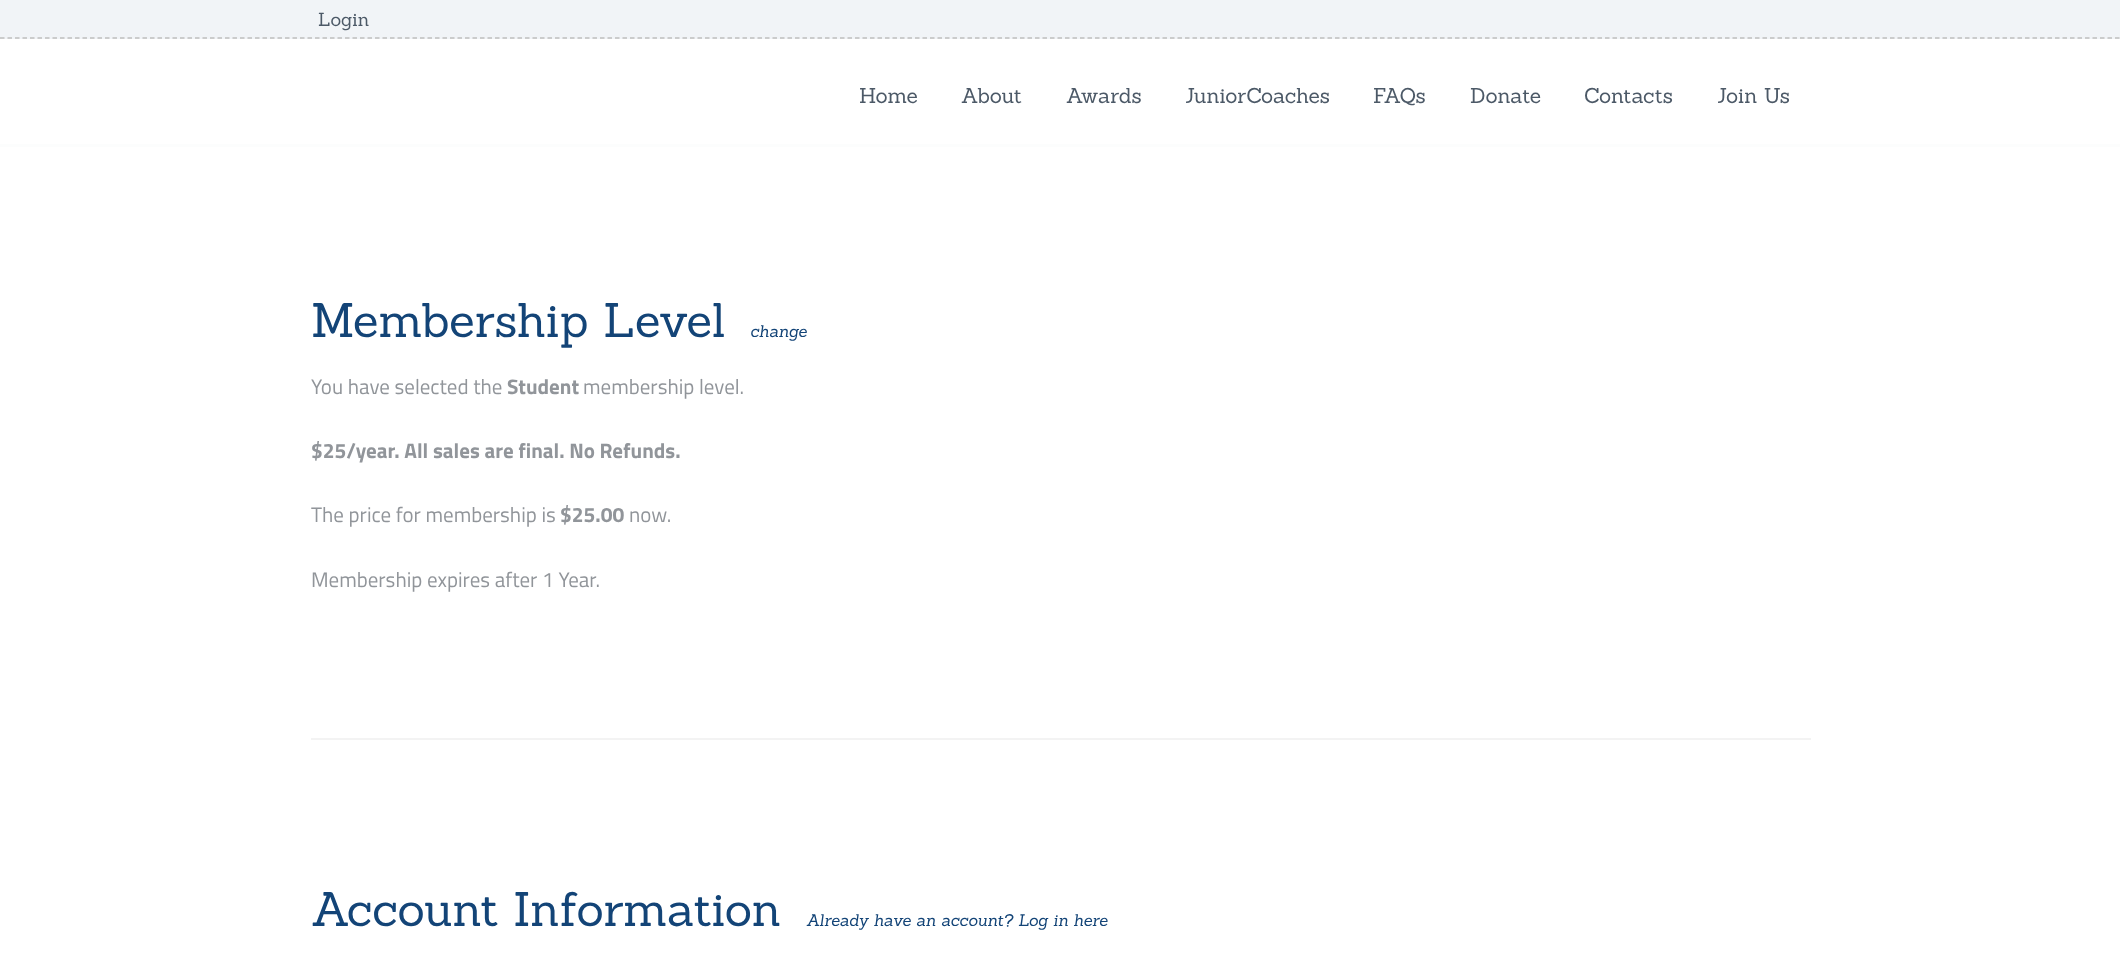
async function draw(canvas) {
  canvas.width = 2120;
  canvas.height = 979;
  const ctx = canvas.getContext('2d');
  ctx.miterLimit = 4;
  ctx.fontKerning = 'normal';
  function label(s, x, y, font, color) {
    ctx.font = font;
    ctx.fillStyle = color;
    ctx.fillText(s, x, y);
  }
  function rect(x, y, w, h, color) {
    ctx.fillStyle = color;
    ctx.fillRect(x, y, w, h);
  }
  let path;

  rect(0, 0, 2120, 979, '#fff');
  rect(0, 0, 2120, 39, '#f1f4f7');
  path = new Path2D('M0 38H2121');
  ctx.strokeStyle = '#bfbebe';
  ctx.lineWidth = 1.5;
  ctx.setLineDash([4.5, 3]);
  ctx.stroke(path);
  label('Login', 318, 26, '18.5px Sanchez', '#4c5967');
  rect(0, 144, 2120, 3, '#fcfdfd');
  label('Home', 859, 103, '21px Sanchez', '#4c5967');
  label('About', 961, 103, '21px Sanchez', '#4c5967');
  label('Awards', 1066, 103, '21px Sanchez', '#4c5967');
  label('JuniorCoaches', 1185, 103, '21px Sanchez', '#4c5967');
  label('FAQs', 1373, 103, '21px Sanchez', '#4c5967');
  label('Donate', 1470, 103, '21px Sanchez', '#4c5967');
  label('Contacts', 1584, 103, '21px Sanchez', '#4c5967');
  label('Join Us', 1717, 103, '21px Sanchez', '#4c5967');
  label('Membership Level', 311, 337, '47.25px Sanchez', '#134477');
  label('change', 750, 337, 'italic 16.5px Sanchez', '#134477');
  label('You have selected the', 311, 394, '21px Titillium Web', '#91959a');
  label('Student', 507, 394, 'bold 21px Titillium Web', '#91959a');
  label('membership level.', 583, 394, '21px Titillium Web', '#91959a');
  label('$25/year. All sales are final. No Refunds.', 311, 458, 'bold 21px Titillium Web', '#91959a');
  label('The price for membership is', 311, 522, '21px Titillium Web', '#91959a');
  label('$25.00', 560, 522, 'bold 21px Titillium Web', '#91959a');
  label('now.', 629, 522, '21px Titillium Web', '#91959a');
  label('Membership expires after 1 Year.', 311, 587, '21px Titillium Web', '#91959a');
  rect(311, 738, 1500, 2, '#f3f3f3');
  label('Account Information', 311, 926, '47.25px Sanchez', '#134477');
  label('Already have an account? Log in here', 806, 926, 'italic 16.5px Sanchez', '#134477');
}

draw(document.querySelector('canvas'));
